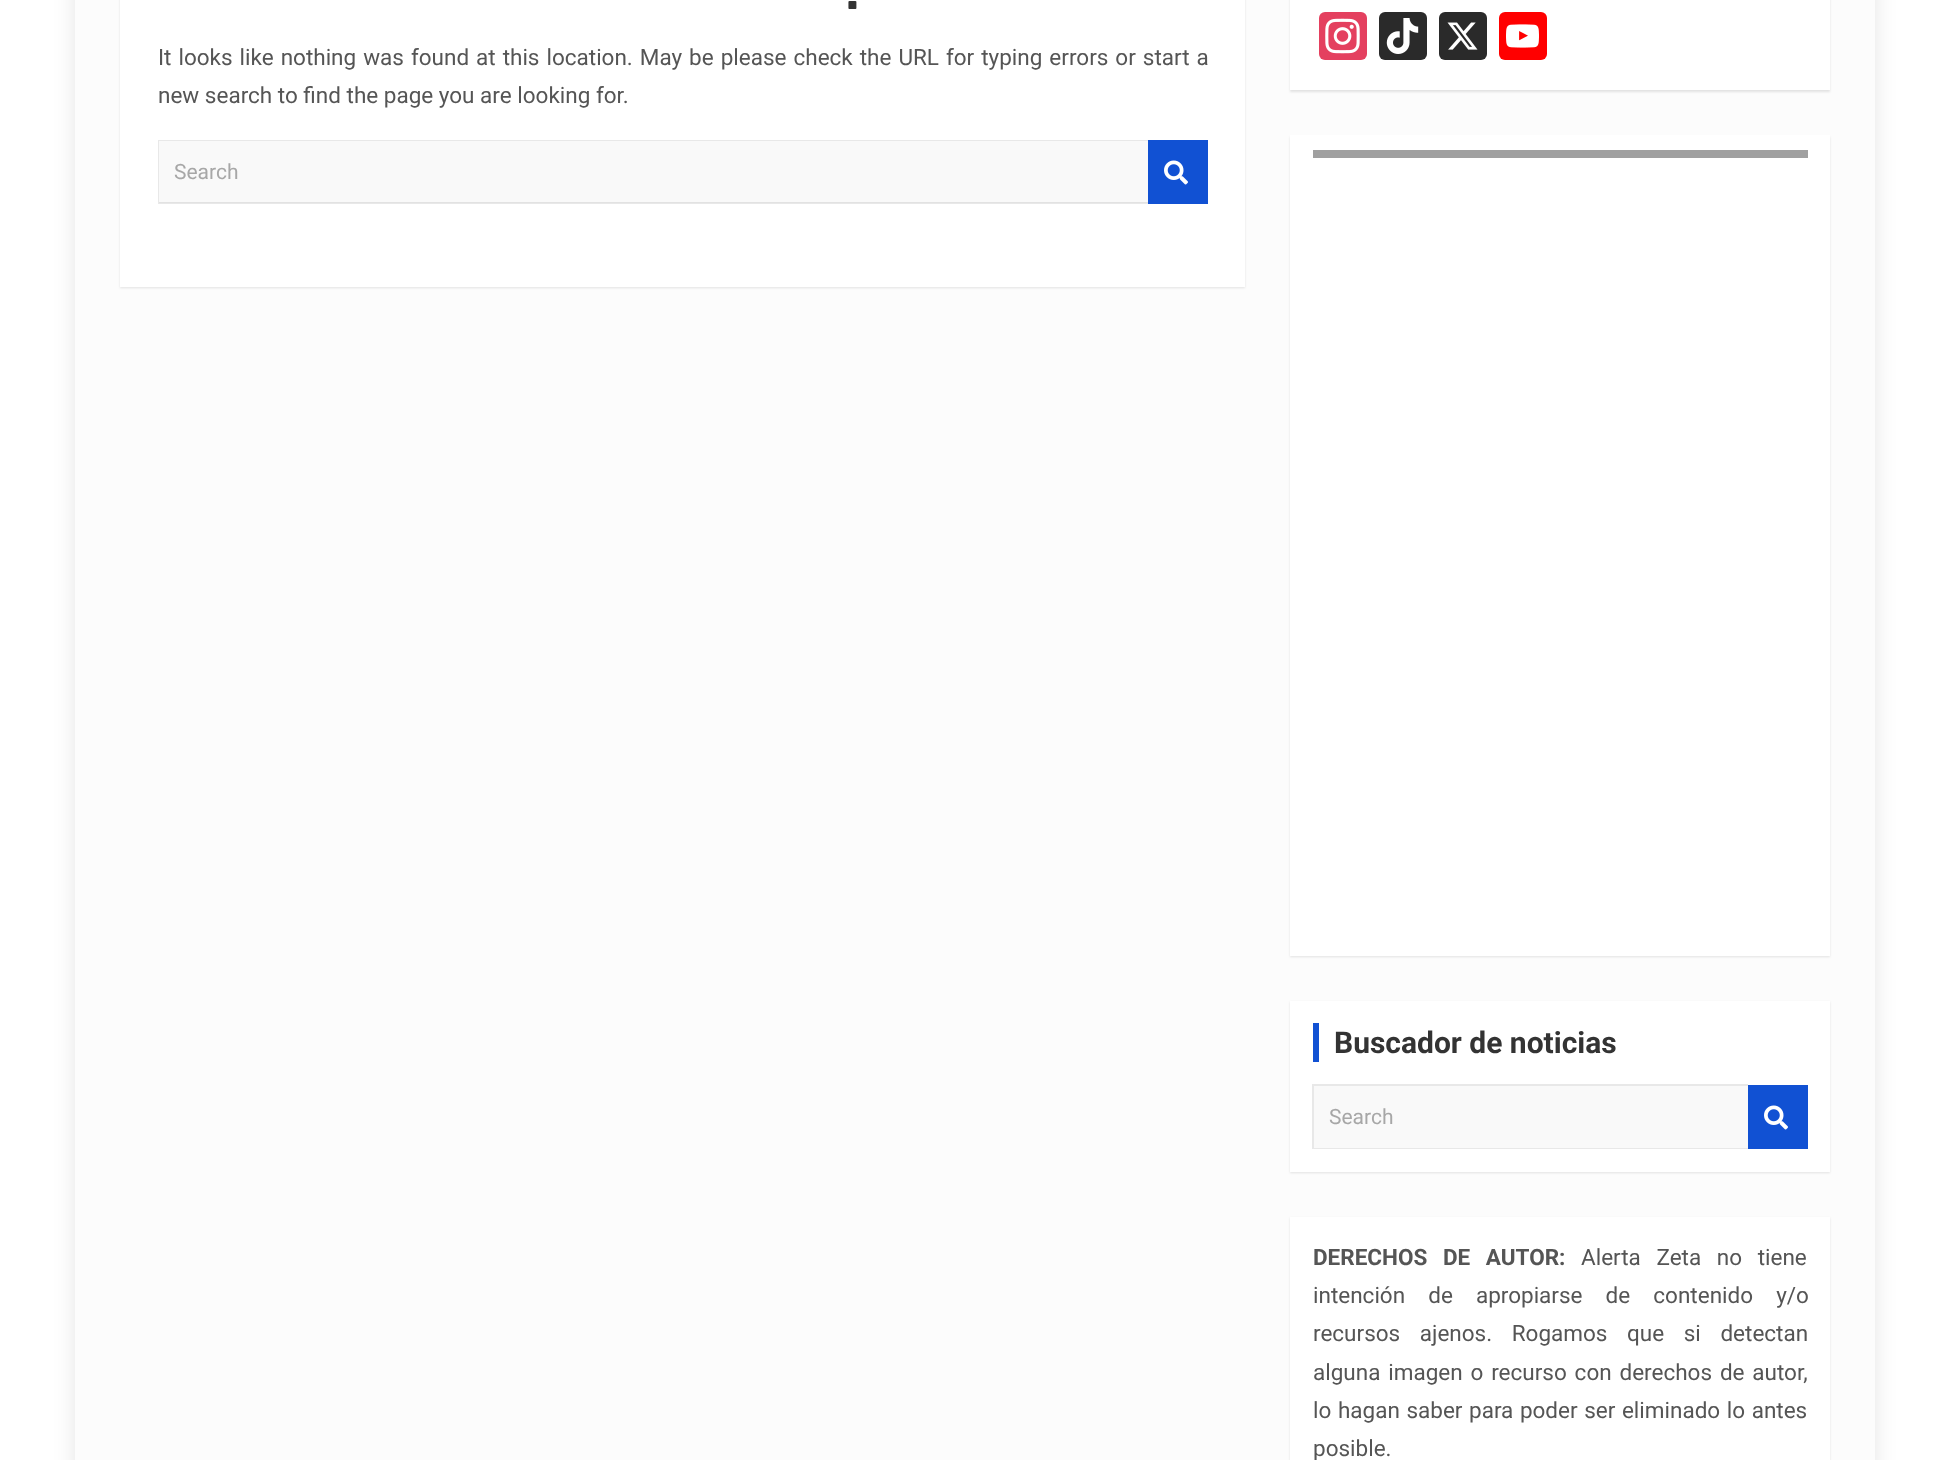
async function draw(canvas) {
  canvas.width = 1950;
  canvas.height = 1460;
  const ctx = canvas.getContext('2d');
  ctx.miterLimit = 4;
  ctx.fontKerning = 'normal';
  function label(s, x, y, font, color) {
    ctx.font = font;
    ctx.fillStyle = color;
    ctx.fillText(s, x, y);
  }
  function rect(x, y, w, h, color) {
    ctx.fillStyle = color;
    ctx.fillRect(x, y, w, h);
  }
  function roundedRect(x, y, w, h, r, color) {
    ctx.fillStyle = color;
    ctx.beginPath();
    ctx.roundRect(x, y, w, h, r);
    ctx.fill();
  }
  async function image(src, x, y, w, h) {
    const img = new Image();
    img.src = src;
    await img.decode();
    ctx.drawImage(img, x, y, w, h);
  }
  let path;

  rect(0, 0, 1950, 1460, '#fff');
  ctx.fillStyle = '#0000001a';
  ctx.filter = 'blur(11px)';
  ctx.beginPath();
  ctx.rect(75, -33, 1800, 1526);
  ctx.fill();
  ctx.filter = 'none';
  rect(75, 0, 1800, 1460, '#fcfcfc');
  ctx.fillStyle = '#0000001a';
  ctx.filter = 'blur(1px)';
  ctx.beginPath();
  ctx.rect(120, -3, 1125, 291);
  ctx.fill();
  ctx.filter = 'none';
  rect(120, 0, 1125, 287, '#fff');
  label('.', 846, 9, 'bold 45px Rubik', '#333');
  ctx.wordSpacing = '1.4px';
  label('It looks like nothing was found at this location. May be please check the URL for typing errors or start a', 158, 65, '22.5px Roboto', '#555');
  ctx.wordSpacing = '0px';
  label('new search to find the page you are looking for.', 158, 103, '22.5px Roboto', '#555');
  rect(159, 141, 989, 62, '#f9f9f9');
  ctx.fillStyle = '#e8e8e8';
  path = new Path2D('M158 140H1148V141H159Z');
  ctx.fill(path);
  ctx.fillStyle = '#00000017';
  path = new Path2D('M1148 204H158L159 202H1148Z');
  ctx.fill(path);
  path = new Path2D('M158 204V140L159 141V202Z');
  ctx.fill(path);
  label('Search', 174, 179, '21px Roboto', '#a7a7a7');
  rect(1148, 140, 60, 64, '#1151d3');
  await image('assets/img1.png', 1164, 160, 24, 25);
  ctx.fillStyle = '#0000001a';
  ctx.filter = 'blur(1px)';
  ctx.beginPath();
  ctx.rect(1290, -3, 540, 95);
  ctx.fill();
  ctx.filter = 'none';
  rect(1290, 0, 540, 90, '#fff');
  roundedRect(1319, 12, 48, 48, 6, '#e4405f');
  await image('assets/img2.png', 1325, 18, 35, 36);
  roundedRect(1379, 12, 48, 48, 6, '#2a2a2a');
  await image('assets/img3.png', 1386, 18, 33, 36);
  roundedRect(1439, 12, 48, 48, 6, '#2a2a2a');
  await image('assets/img4.png', 1447, 22, 31, 28);
  roundedRect(1499, 12, 48, 48, 6, '#f00');
  await image('assets/img5.png', 1506, 24, 33, 24);
  ctx.fillStyle = '#0000001a';
  ctx.filter = 'blur(1px)';
  ctx.beginPath();
  ctx.rect(1290, 137, 540, 820);
  ctx.fill();
  ctx.filter = 'none';
  rect(1290, 135, 540, 821, '#fff');
  rect(1313, 150, 495, 8, '#a0a0a0');
  ctx.fillStyle = '#0000001a';
  ctx.filter = 'blur(1px)';
  ctx.beginPath();
  ctx.rect(1290, 1002, 540, 171);
  ctx.fill();
  ctx.filter = 'none';
  rect(1290, 1001, 540, 171, '#fff');
  rect(1313, 1023, 6, 39, '#1151d3');
  label('Buscador de noticias', 1334, 1053, 'bold 30px Roboto', '#333');
  rect(1314, 1086, 434, 62, '#f9f9f9');
  ctx.fillStyle = '#e8e8e8';
  path = new Path2D('M1312 1084H1748V1086H1314Z');
  ctx.fill(path);
  path = new Path2D('M1748 1149H1312L1314 1148H1748Z');
  ctx.fill(path);
  ctx.fillStyle = '#00000017';
  path = new Path2D('M1312 1149V1084L1314 1086V1148Z');
  ctx.fill(path);
  label('Search', 1329, 1124, '21px Roboto', '#a7a7a7');
  rect(1748, 1085, 60, 64, '#1151d3');
  await image('assets/img1.png', 1764, 1105, 24, 25);
  ctx.fillStyle = '#0000001a';
  ctx.filter = 'blur(1px)';
  ctx.beginPath();
  ctx.rect(1290, 1218, 540, 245);
  ctx.fill();
  ctx.filter = 'none';
  rect(1290, 1217, 540, 243, '#fff');
  ctx.wordSpacing = '10px';
  label('DERECHOS DE AUTOR:', 1313, 1265, 'bold 22.5px Roboto', '#555');
  label('Alerta Zeta no tiene', 1581, 1265, '22.5px Roboto', '#555');
  ctx.wordSpacing = '17.5px';
  label('intención de apropiarse de contenido y/o', 1313, 1303, '22.5px Roboto', '#555');
  ctx.wordSpacing = '14px';
  label('recursos ajenos. Rogamos que si detectan', 1313, 1341, '22.5px Roboto', '#555');
  ctx.wordSpacing = '2.25px';
  label('alguna imagen o recurso con derechos de autor,', 1313, 1380, '22.5px Roboto', '#555');
  ctx.wordSpacing = '1px';
  label('lo hagan saber para poder ser eliminado lo antes', 1313, 1418, '22.5px Roboto', '#555');
  ctx.wordSpacing = '0px';
  label('posible.', 1313, 1456, '22.5px Roboto', '#555');
}

draw(document.querySelector('canvas'));
